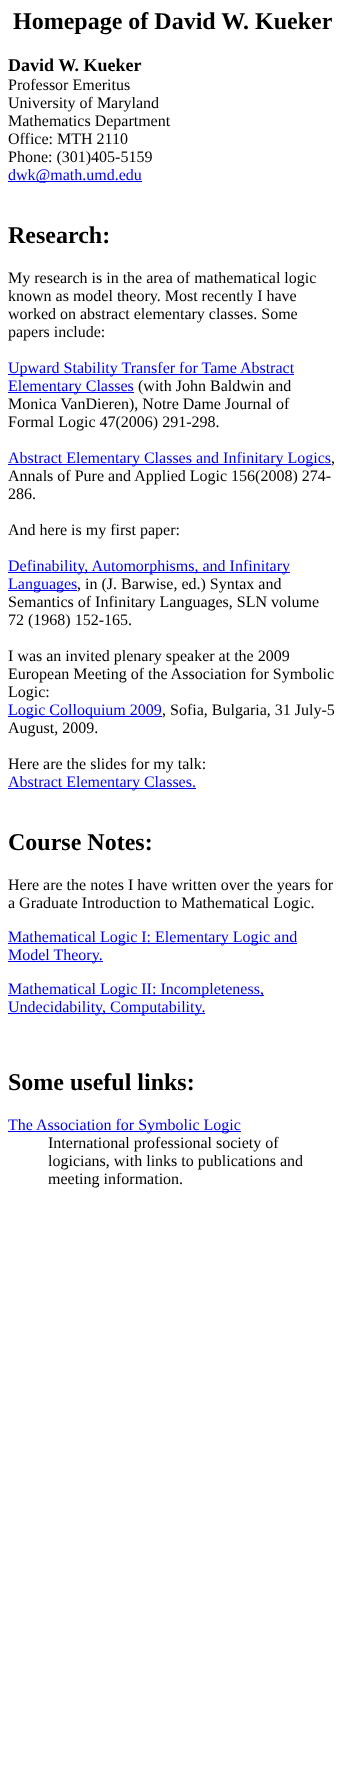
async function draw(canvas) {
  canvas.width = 346;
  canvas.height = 1767;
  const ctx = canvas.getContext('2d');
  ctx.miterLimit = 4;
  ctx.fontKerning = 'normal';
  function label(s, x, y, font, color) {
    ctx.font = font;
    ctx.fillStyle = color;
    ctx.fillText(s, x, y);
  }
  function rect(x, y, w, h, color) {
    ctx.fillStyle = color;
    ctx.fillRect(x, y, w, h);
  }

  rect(0, 0, 346, 1767, '#fff');
  label('Homepage of David W. Kueker', 13, 29, 'bold 24px Liberation Serif', '#000');
  label('David W. Kueker', 8, 71, 'bold 18px Liberation Serif', '#000');
  label('Professor Emeritus', 8, 90, '16px Liberation Serif', '#000');
  label('University of Maryland', 8, 108, '16px Liberation Serif', '#000');
  label('Mathematics Department', 8, 126, '16px Liberation Serif', '#000');
  label('Office: MTH 2110', 8, 144, '16px Liberation Serif', '#000');
  label('Phone: (301)405-5159', 8, 162, '16px Liberation Serif', '#000');
  rect(8, 181, 134, 1, '#00e');
  label('dwk@math.umd.edu', 8, 180, '16px Liberation Serif', '#00e');
  label('Research:', 8, 243, 'bold 24px Liberation Serif', '#000');
  label('My research is in the area of mathematical logic', 8, 283, '16px Liberation Serif', '#000');
  label('known as model theory. Most recently I have', 8, 301, '16px Liberation Serif', '#000');
  label('worked on abstract elementary classes. Some', 8, 319, '16px Liberation Serif', '#000');
  label('papers include:', 8, 337, '16px Liberation Serif', '#000');
  rect(8, 374, 286, 1, '#00e');
  label('Upward Stability Transfer for Tame Abstract', 8, 373, '16px Liberation Serif', '#00e');
  rect(8, 392, 126, 1, '#00e');
  label('Elementary Classes', 8, 391, '16px Liberation Serif', '#00e');
  label('(with John Baldwin and', 138, 391, '16px Liberation Serif', '#000');
  label('Monica VanDieren), Notre Dame Journal of', 8, 409, '16px Liberation Serif', '#000');
  label('Formal Logic 47(2006) 291-298.', 8, 427, '16px Liberation Serif', '#000');
  rect(8, 464, 323, 1, '#00e');
  label('Abstract Elementary Classes and Infinitary Logics', 8, 463, '16px Liberation Serif', '#00e');
  label(',', 331, 463, '16px Liberation Serif', '#000');
  label('Annals of Pure and Applied Logic 156(2008) 274-', 8, 481, '16px Liberation Serif', '#000');
  label('286.', 8, 499, '16px Liberation Serif', '#000');
  label('And here is my first paper:', 8, 535, '16px Liberation Serif', '#000');
  rect(8, 572, 282, 1, '#00e');
  label('Definability, Automorphisms, and Infinitary', 8, 571, '16px Liberation Serif', '#00e');
  rect(8, 590, 69, 1, '#00e');
  label('Languages', 8, 589, '16px Liberation Serif', '#00e');
  label(', in (J. Barwise, ed.) Syntax and', 77, 589, '16px Liberation Serif', '#000');
  label('Semantics of Infinitary Languages, SLN volume', 8, 607, '16px Liberation Serif', '#000');
  label('72 (1968) 152-165.', 8, 625, '16px Liberation Serif', '#000');
  label('I was an invited plenary speaker at the 2009', 8, 661, '16px Liberation Serif', '#000');
  label('European Meeting of the Association for Symbolic', 8, 679, '16px Liberation Serif', '#000');
  label('Logic:', 8, 697, '16px Liberation Serif', '#000');
  rect(8, 716, 154, 1, '#00e');
  label('Logic Colloquium 2009', 8, 715, '16px Liberation Serif', '#00e');
  label(', Sofia, Bulgaria, 31 July-5', 162, 715, '16px Liberation Serif', '#000');
  label('August, 2009.', 8, 733, '16px Liberation Serif', '#000');
  label('Here are the slides for my talk:', 8, 769, '16px Liberation Serif', '#000');
  rect(8, 788, 188, 1, '#00e');
  label('Abstract Elementary Classes.', 8, 787, '16px Liberation Serif', '#00e');
  label('Course Notes:', 8, 850, 'bold 24px Liberation Serif', '#000');
  label('Here are the notes I have written over the years for', 8, 890, '16px Liberation Serif', '#000');
  label('a Graduate Introduction to Mathematical Logic.', 8, 908, '16px Liberation Serif', '#000');
  rect(8, 943, 289, 1, '#00e');
  label('Mathematical Logic I: Elementary Logic and', 8, 942, '16px Liberation Serif', '#00e');
  rect(8, 961, 95, 1, '#00e');
  label('Model Theory.', 8, 960, '16px Liberation Serif', '#00e');
  rect(8, 995, 256, 1, '#00e');
  label('Mathematical Logic II: Incompleteness,', 8, 994, '16px Liberation Serif', '#00e');
  rect(8, 1013, 197, 1, '#00e');
  label('Undecidability, Computability.', 8, 1012, '16px Liberation Serif', '#00e');
  label('Some useful links:', 8, 1090, 'bold 24px Liberation Serif', '#000');
  rect(8, 1131, 233, 1, '#00e');
  label('The Association for Symbolic Logic', 8, 1130, '16px Liberation Serif', '#00e');
  label('International professional society of', 48, 1148, '16px Liberation Serif', '#000');
  label('logicians, with links to publications and', 48, 1166, '16px Liberation Serif', '#000');
  label('meeting information.', 48, 1184, '16px Liberation Serif', '#000');
}

draw(document.querySelector('canvas'));
